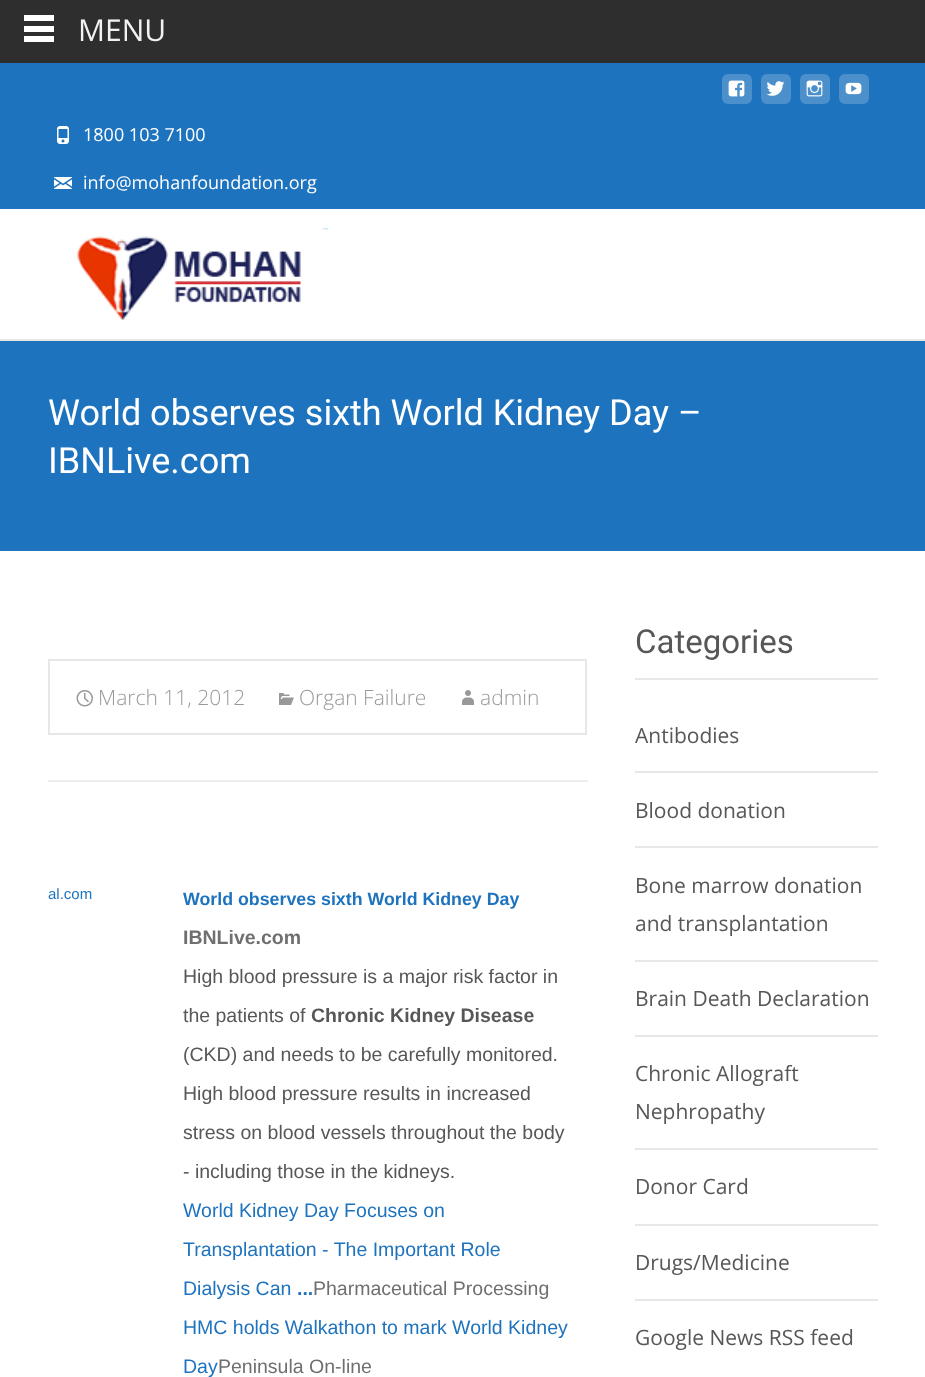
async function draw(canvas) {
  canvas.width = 925;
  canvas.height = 1377;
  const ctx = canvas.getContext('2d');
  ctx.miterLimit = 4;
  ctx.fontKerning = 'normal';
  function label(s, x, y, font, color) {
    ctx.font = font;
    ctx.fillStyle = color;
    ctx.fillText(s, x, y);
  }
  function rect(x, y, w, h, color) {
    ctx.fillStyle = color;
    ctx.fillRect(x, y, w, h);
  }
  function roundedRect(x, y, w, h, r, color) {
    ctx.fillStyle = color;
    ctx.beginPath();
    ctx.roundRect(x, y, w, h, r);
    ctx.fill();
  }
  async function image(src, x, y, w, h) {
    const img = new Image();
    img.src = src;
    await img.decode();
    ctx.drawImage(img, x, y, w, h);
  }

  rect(0, 0, 925, 1377, '#fff');
  rect(0, 0, 925, 63, '#2e2e2e');
  rect(24, 15, 30, 6, '#fff');
  rect(24, 26, 30, 6, '#fff');
  rect(24, 36, 30, 6, '#fff');
  label('MENU', 78, 41, '30px Open Sans', '#f2f2f2');
  rect(0, 63, 925, 146, '#1e73be');
  roundedRect(722, 74, 30, 30, 6, '#4b8fcb');
  await image('assets/img1.png', 728, 80, 17, 17);
  roundedRect(761, 74, 30, 30, 6, '#4b8fcb');
  await image('assets/img2.png', 766, 81, 19, 15);
  roundedRect(800, 74, 30, 30, 6, '#4b8fcb');
  await image('assets/img3.png', 806, 80, 17, 17);
  roundedRect(839, 74, 30, 30, 6, '#4b8fcb');
  await image('assets/img4.png', 845, 82, 17, 13);
  await image('assets/img5.png', 57, 126, 12, 18);
  label('1800 103 7100', 83, 141, '18px Open Sans', '#fff');
  await image('assets/img6.png', 54, 177, 18, 12);
  label('info@mohanfoundation.org', 83, 189, '18px Open Sans', '#fff');
  rect(0, 339, 925, 2, '#e7e7e7');
  await image('assets/img7.png', 77, 228, 252, 92);
  rect(0, 341, 925, 210, '#1e73be');
  label('World observes sixth World Kidney Day –', 48, 425, '36px Roboto', '#fff');
  label('IBNLive.com', 48, 473, '36px Roboto', '#fff');
  ctx.strokeStyle = '#e7e7e7';
  ctx.lineWidth = 2;
  ctx.strokeRect(49, 660, 537, 74);
  await image('assets/img8.png', 76, 690, 17, 17);
  label('March 11, 2012', 98, 705, '300 21px Open Sans', '#999');
  await image('assets/img9.png', 279, 693, 15, 12);
  label('Organ Failure', 299, 705, '300 21px Open Sans', '#999');
  await image('assets/img10.png', 462, 690, 12, 15);
  label('admin', 480, 705, '300 21px Open Sans', '#999');
  label('al.com', 48, 899, '15px Liberation Sans', '#1e73be');
  rect(48, 780, 540, 2, '#ededed');
  label('World observes sixth World Kidney Day', 183, 905, 'bold 17.8px Liberation Sans', '#1e73be');
  label('IBNLive.com', 183, 944, 'bold 19.5px Liberation Sans', '#6f6f6f');
  label('High blood pressure is a major risk factor in', 183, 983, '19.5px Liberation Sans', '#575757');
  label('the patients of', 183, 1022, '19.5px Liberation Sans', '#575757');
  label('Chronic Kidney Disease', 311, 1022, 'bold 19.5px Liberation Sans', '#575757');
  label('(CKD) and needs to be carefully monitored.', 183, 1061, '19.5px Liberation Sans', '#575757');
  label('High blood pressure results in increased', 183, 1100, '19.5px Liberation Sans', '#575757');
  label('stress on blood vessels throughout the body', 183, 1139, '19.5px Liberation Sans', '#575757');
  label('- including those in the kidneys.', 183, 1178, '19.5px Liberation Sans', '#575757');
  label('World Kidney Day Focuses on', 183, 1217, '19.5px Liberation Sans', '#1e73be');
  label('Transplantation - The Important Role', 183, 1256, '19.5px Liberation Sans', '#1e73be');
  label('Dialysis Can', 183, 1295, '19.5px Liberation Sans', '#1e73be');
  label('...', 297, 1295, 'bold 19.5px Liberation Sans', '#1e73be');
  label('Pharmaceutical Processing', 313, 1295, '19.5px Liberation Sans', '#6f6f6f');
  label('HMC holds Walkathon to mark World Kidney', 183, 1334, '19.5px Liberation Sans', '#1e73be');
  label('Day', 183, 1373, '19.5px Liberation Sans', '#1e73be');
  label('Peninsula On-line', 218, 1373, '19.5px Liberation Sans', '#6f6f6f');
  rect(635, 678, 243, 2, '#e7e7e7');
  label('Categories', 635, 653, '33px Roboto', '#575757');
  rect(635, 771, 243, 2, '#e7e7e7');
  label('Antibodies', 635, 743, '21px Open Sans', '#575757');
  rect(635, 846, 243, 2, '#e7e7e7');
  label('Blood donation', 635, 818, '21px Open Sans', '#575757');
  rect(635, 960, 243, 2, '#e7e7e7');
  label('Bone marrow donation', 635, 893, '21px Open Sans', '#575757');
  label('and transplantation', 635, 931, '21px Open Sans', '#575757');
  rect(635, 1035, 243, 2, '#e7e7e7');
  label('Brain Death Declaration', 635, 1006, '21px Open Sans', '#575757');
  rect(635, 1148, 243, 2, '#e7e7e7');
  label('Chronic Allograft', 635, 1081, '21px Open Sans', '#575757');
  label('Nephropathy', 635, 1119, '21px Open Sans', '#575757');
  rect(635, 1224, 243, 2, '#e7e7e7');
  label('Donor Card', 635, 1194, '21px Open Sans', '#575757');
  rect(635, 1299, 243, 2, '#e7e7e7');
  label('Drugs/Medicine', 635, 1270, '21px Open Sans', '#575757');
  label('Google News RSS feed', 635, 1345, '21px Open Sans', '#575757');
}

draw(document.querySelector('canvas'));
